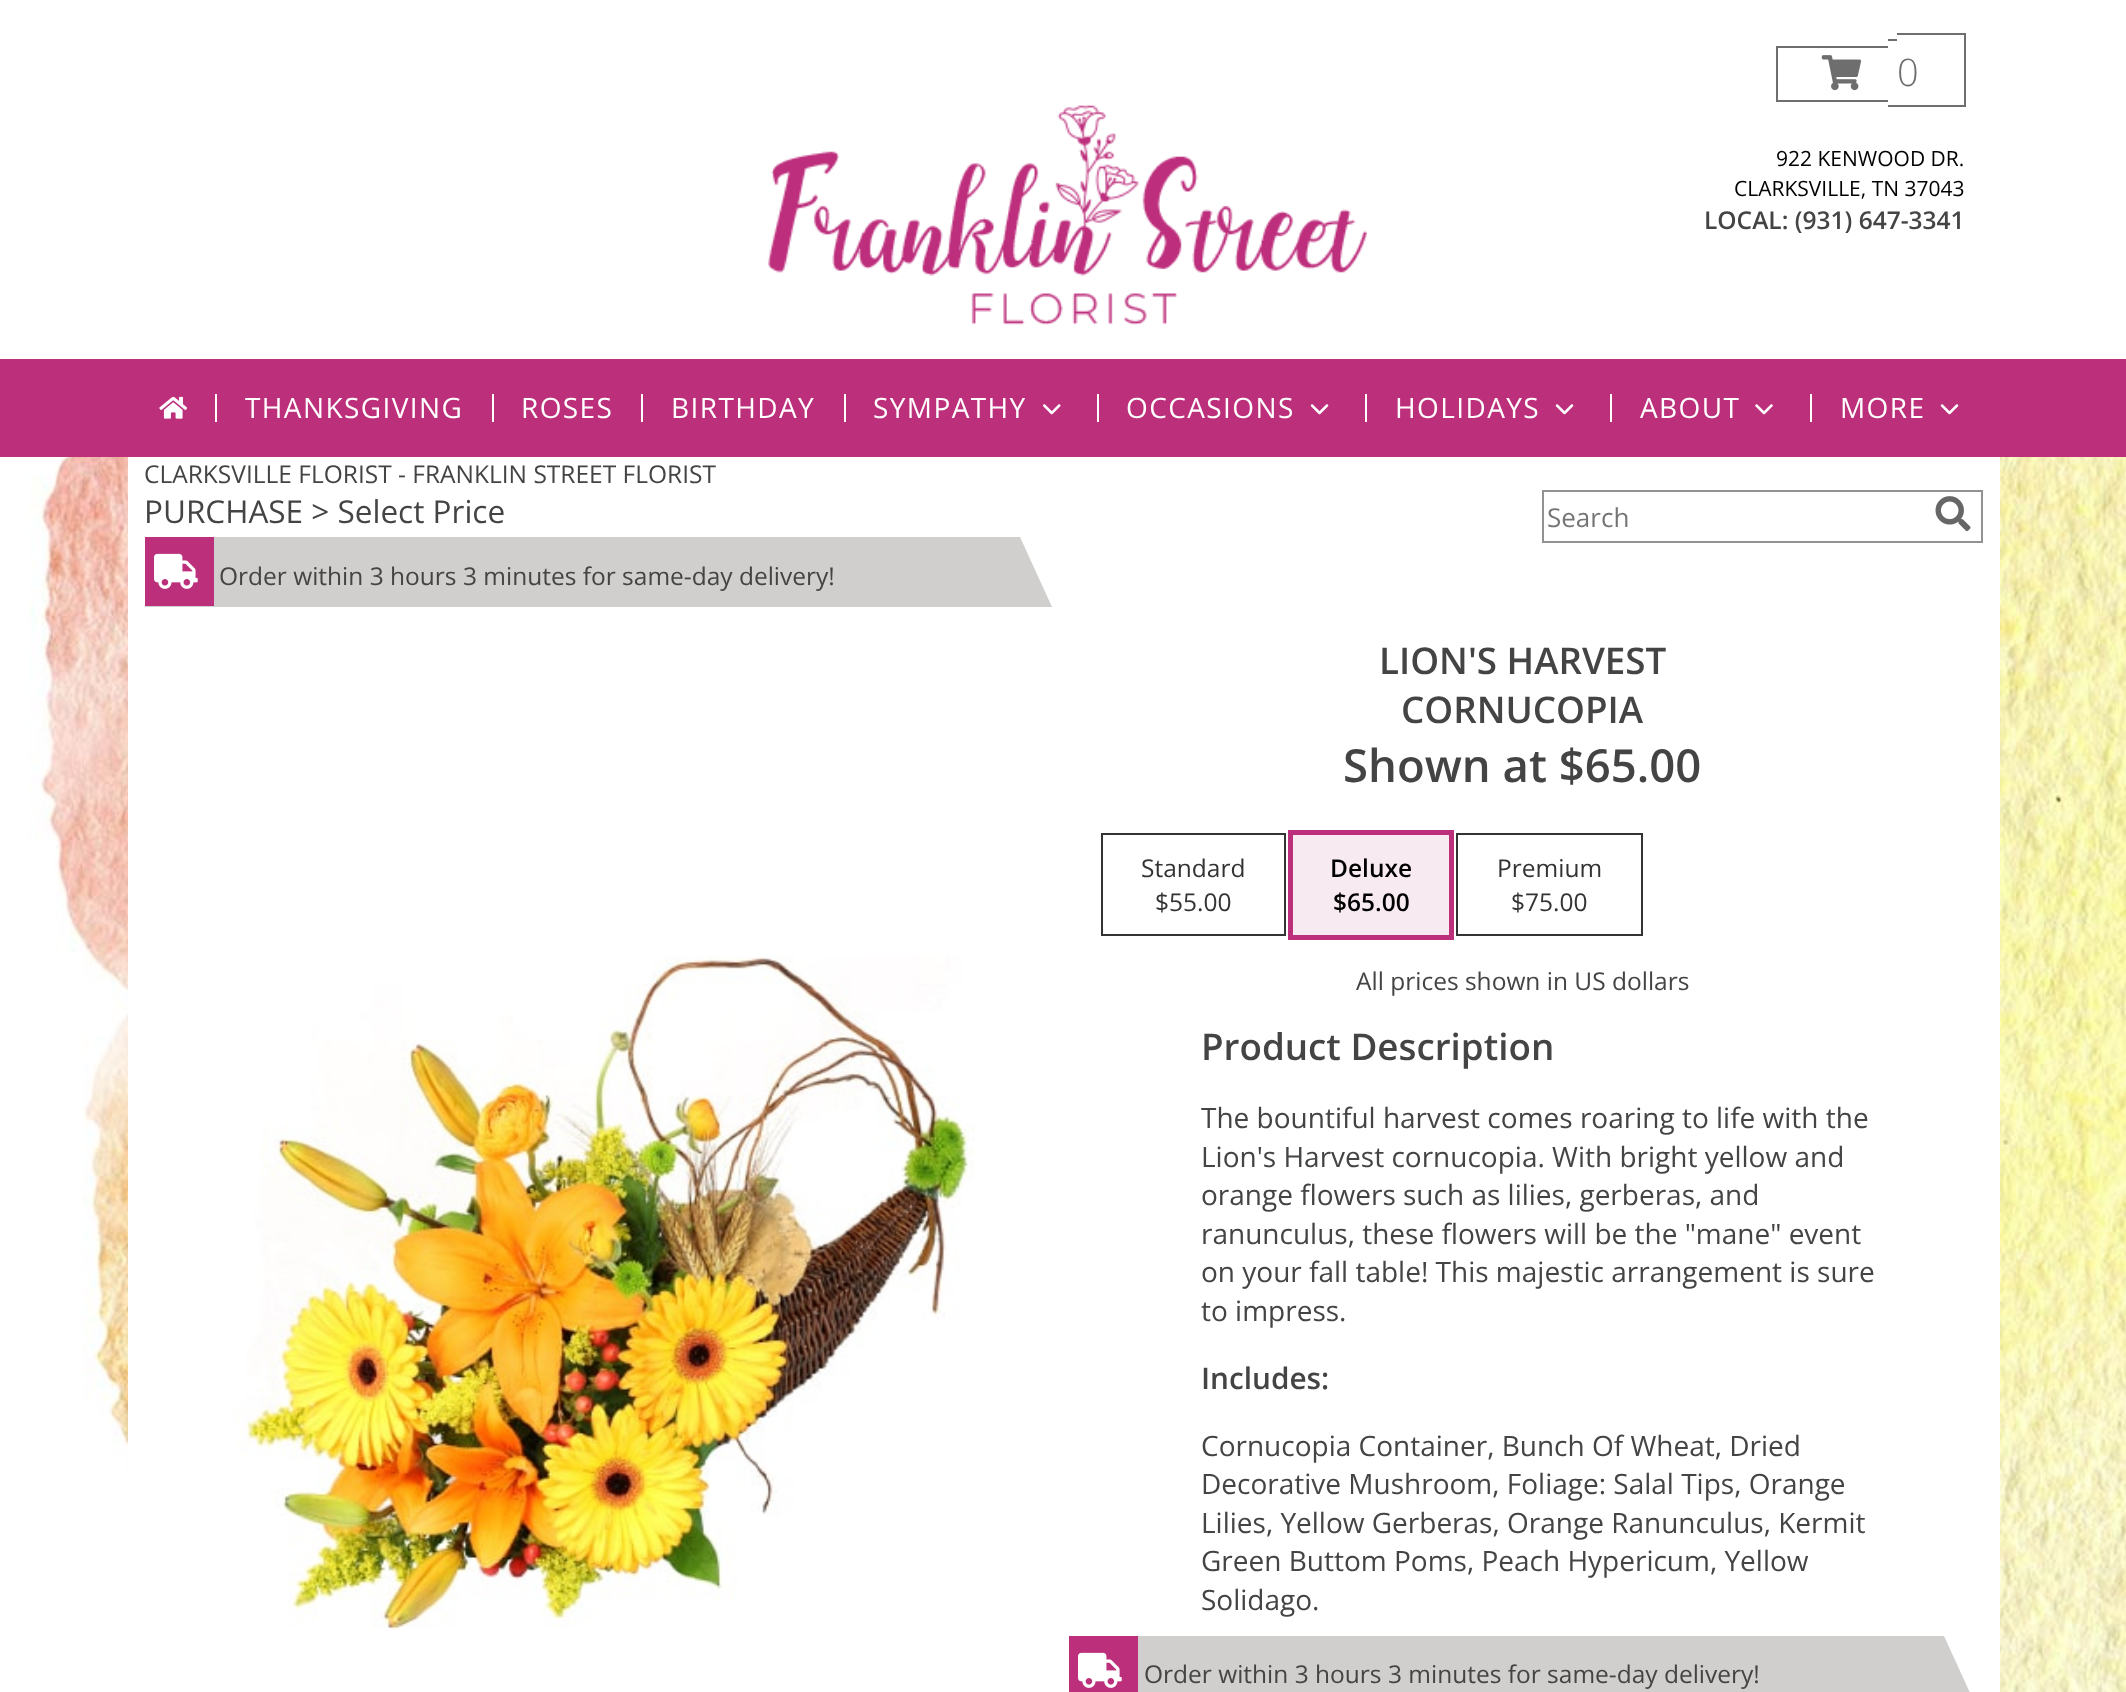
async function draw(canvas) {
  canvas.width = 2126;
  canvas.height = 1692;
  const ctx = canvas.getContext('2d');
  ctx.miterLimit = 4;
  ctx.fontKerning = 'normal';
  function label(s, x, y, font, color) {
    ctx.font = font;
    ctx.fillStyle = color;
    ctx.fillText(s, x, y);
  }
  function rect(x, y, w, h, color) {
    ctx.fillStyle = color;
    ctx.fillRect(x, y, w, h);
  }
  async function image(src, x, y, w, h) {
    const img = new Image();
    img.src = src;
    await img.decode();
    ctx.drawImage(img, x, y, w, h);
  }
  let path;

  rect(0, 0, 2126, 1692, '#fff');
  await image('assets/img1.png', 28, 457, 2098, 1235);
  rect(128, 457, 1872, 1235, '#fff');
  await image('assets/img2.png', 767, 105, 600, 220);
  rect(1776, 46, 112, 2, '#6e6e6e');
  rect(1776, 100, 112, 2, '#6e6e6e');
  rect(1776, 46, 2, 56, '#6e6e6e');
  rect(1888, 39, 9, 2, '#6e6e6e');
  rect(1888, 105, 9, 2, '#6e6e6e');
  rect(1897, 33, 68, 2, '#6e6e6e');
  rect(1964, 33, 2, 74, '#6e6e6e');
  rect(1897, 105, 68, 2, '#6e6e6e');
  await image('assets/img3.png', 1821, 55, 41, 36);
  label('0', 1897, 86, '300 38px Open Sans', '#6e6e6e');
  label('922 KENWOOD DR.', 1776, 166, '21px Open Sans', '#000');
  label('CLARKSVILLE, TN 37043', 1734, 196, '21px Open Sans', '#000');
  label('LOCAL: (931) 647-3341', 1704, 229, '600 24.5px Open Sans', '#444');
  rect(0, 359, 2126, 98, '#bc2f7b');
  await image('assets/img4.png', 159, 396, 28, 23);
  rect(215, 394, 2, 28, '#fff');
  ctx.letterSpacing = '1.4px';
  label('THANKSGIVING', 245, 418, '28px Open Sans', '#fff');
  rect(492, 394, 2, 28, '#fff');
  label('ROSES', 521, 418, '28px Open Sans', '#fff');
  rect(641, 394, 2, 28, '#fff');
  label('BIRTHDAY', 671, 418, '28px Open Sans', '#fff');
  rect(844, 394, 2, 28, '#fff');
  label('SYMPATHY', 873, 418, '28px Open Sans', '#fff');
  await image('assets/img5.png', 1043, 404, 18, 11);
  rect(1097, 394, 2, 28, '#fff');
  label('OCCASIONS', 1126, 418, '28px Open Sans', '#fff');
  await image('assets/img6.png', 1310, 404, 19, 11);
  rect(1365, 394, 2, 28, '#fff');
  label('HOLIDAYS', 1395, 418, '28px Open Sans', '#fff');
  await image('assets/img6.png', 1555, 404, 19, 11);
  rect(1610, 394, 2, 28, '#fff');
  label('ABOUT', 1640, 418, '28px Open Sans', '#fff');
  await image('assets/img7.png', 1755, 404, 18, 11);
  rect(1810, 394, 2, 28, '#fff');
  label('MORE', 1840, 418, '28px Open Sans', '#fff');
  await image('assets/img6.png', 1940, 404, 19, 11);
  ctx.letterSpacing = '0px';
  label('CLARKSVILLE FLORIST - FRANKLIN STREET FLORIST', 144, 483, '24.5px Open Sans', '#444');
  label('PURCHASE > Select Price', 144, 523, '31.5px Open Sans', '#444');
  ctx.strokeStyle = '#919191';
  ctx.lineWidth = 2;
  ctx.strokeRect(1543, 491, 439, 51);
  label('Search', 1547, 527, '26px Open Sans', '#757575');
  await image('assets/img8.png', 1935, 496, 36, 36);
  ctx.fillStyle = '#d0cfcd';
  path = new Path2D('M1052 607H145V537H1020Z');
  ctx.fill(path);
  rect(145, 537, 69, 69, '#bc2f7b');
  await image('assets/img9.png', 154, 553, 44, 36);
  label('Order within 3 hours 3 minutes for same-day delivery!', 219, 585, '24.5px Open Sans', '#444');
  await image('assets/img10.png', 233, 956, 742, 674);
  label('LION\'S HARVEST', 1379, 674, '600 36.75px Open Sans', '#444');
  label('CORNUCOPIA', 1401, 723, '600 36.75px Open Sans', '#444');
  label('Shown at $65.00', 1343, 782, '600 45.5px Open Sans', '#444');
  ctx.strokeStyle = '#333';
  ctx.strokeRect(1102, 834, 183, 101);
  label('Standard', 1141, 877, '24.5px Open Sans', '#333');
  label('$55.00', 1155, 911, '24.5px Open Sans', '#333');
  ctx.strokeStyle = '#bc2f7b';
  ctx.lineWidth = 5;
  ctx.strokeRect(1290.5, 832.5, 161, 105);
  rect(1293, 835, 156, 100, '#f8eaf1');
  label('Deluxe', 1330, 877, '600 24.5px Open Sans', '#000');
  label('$65.00', 1333, 911, '600 24.5px Open Sans', '#000');
  ctx.strokeStyle = '#333';
  ctx.lineWidth = 2;
  ctx.strokeRect(1457, 834, 185, 101);
  label('Premium', 1497, 877, '24.5px Open Sans', '#333');
  label('$75.00', 1511, 911, '24.5px Open Sans', '#333');
  label('All prices shown in US dollars', 1356, 990, '24.5px Open Sans', '#444');
  label('Product Description', 1201, 1060, '600 36.75px Open Sans', '#444');
  label('The bountiful harvest comes roaring to life with the', 1201, 1128, '28px Open Sans', '#444');
  label('Lion\'s Harvest cornucopia. With bright yellow and', 1201, 1167, '28px Open Sans', '#444');
  label('orange flowers such as lilies, gerberas, and', 1201, 1205, '28px Open Sans', '#444');
  label('ranunculus, these flowers will be the "mane" event', 1201, 1244, '28px Open Sans', '#444');
  label('on your fall table! This majestic arrangement is sure', 1201, 1282, '28px Open Sans', '#444');
  label('to impress.', 1201, 1321, '28px Open Sans', '#444');
  label('Includes:', 1201, 1389, '600 29.75px Open Sans', '#444');
  label('Cornucopia Container, Bunch Of Wheat, Dried', 1201, 1456, '28px Open Sans', '#444');
  label('Decorative Mushroom, Foliage: Salal Tips, Orange', 1201, 1494, '28px Open Sans', '#444');
  label('Lilies, Yellow Gerberas, Orange Ranunculus, Kermit', 1201, 1533, '28px Open Sans', '#444');
  label('Green Buttom Poms, Peach Hypericum, Yellow', 1201, 1571, '28px Open Sans', '#444');
  label('Solidago.', 1201, 1610, '28px Open Sans', '#444');
  ctx.fillStyle = '#d0cfcd';
  path = new Path2D('M1976 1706H1069V1636H1944Z');
  ctx.fill(path);
  rect(1069, 1636, 69, 56, '#bc2f7b');
  await image('assets/img9.png', 1078, 1652, 44, 36);
  label('Order within 3 hours 3 minutes for same-day delivery!', 1144, 1683, '24.5px Open Sans', '#444');
}

draw(document.querySelector('canvas'));
